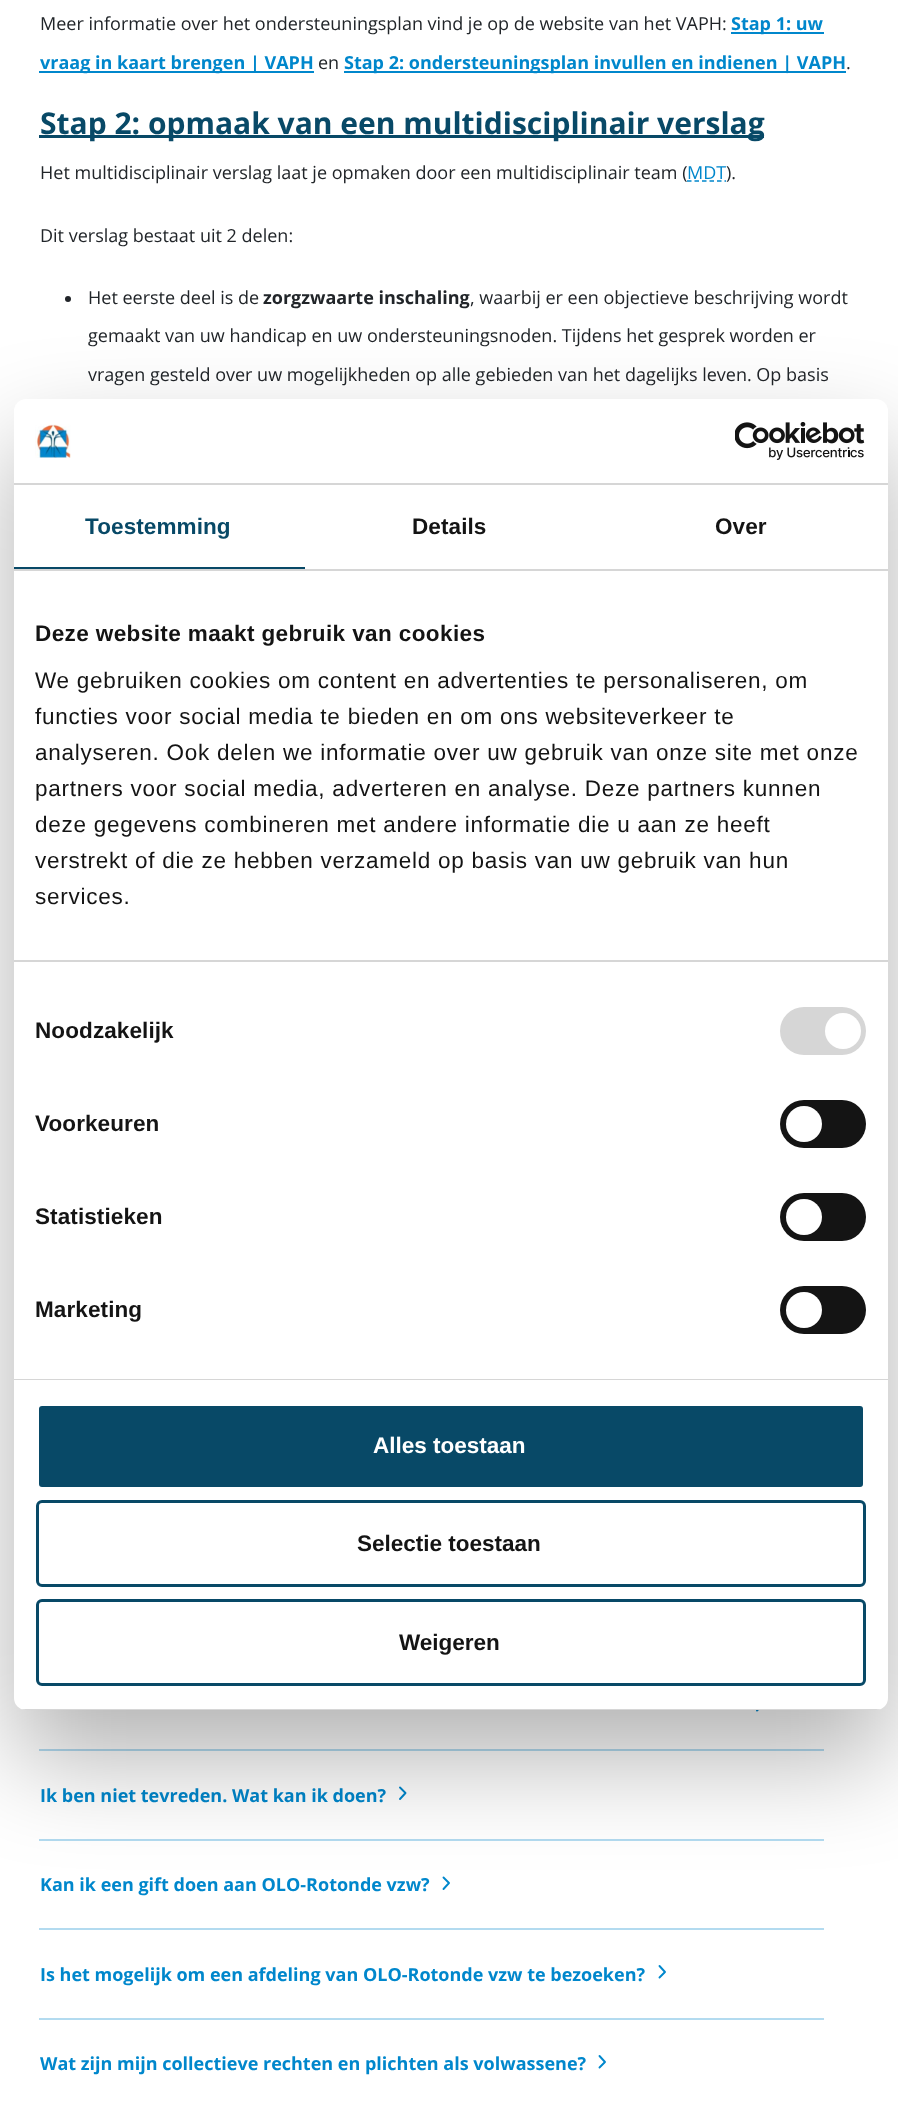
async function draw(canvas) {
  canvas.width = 898;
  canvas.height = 2108;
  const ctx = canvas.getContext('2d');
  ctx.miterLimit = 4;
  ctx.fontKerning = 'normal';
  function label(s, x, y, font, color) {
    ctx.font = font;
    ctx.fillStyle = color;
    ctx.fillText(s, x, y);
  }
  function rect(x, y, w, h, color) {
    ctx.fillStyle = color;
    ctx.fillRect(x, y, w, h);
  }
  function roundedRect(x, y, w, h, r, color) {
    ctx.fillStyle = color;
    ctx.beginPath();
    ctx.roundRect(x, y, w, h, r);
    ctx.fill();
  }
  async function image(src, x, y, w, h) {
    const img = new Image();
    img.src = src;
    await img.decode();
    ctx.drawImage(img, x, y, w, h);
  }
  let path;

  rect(0, 0, 898, 2108, '#fff');
  label('Meer informatie over het ondersteuningsplan vind je op de website van het VAPH:', 40, 30, '18px Open Sans', '#212529');
  rect(731, 32, 93, 2, '#0087cc');
  label('Stap 1: uw', 731, 30, 'bold 18px Open Sans', '#0087cc');
  rect(39, 71, 275, 2, '#0087cc');
  label('vraag in kaart brengen | VAPH', 40, 69, 'bold 18px Open Sans', '#0087cc');
  label('en', 318, 69, '18px Open Sans', '#212529');
  rect(344, 71, 502, 2, '#0087cc');
  label('Stap 2: ondersteuningsplan invullen en indienen | VAPH', 344, 69, 'bold 18px Open Sans', '#0087cc');
  label('.', 846, 69, '18px Open Sans', '#212529');
  rect(39, 135, 725, 3, '#084967');
  label('Stap 2: opmaak van een multidisciplinair verslag', 40, 134, 'bold 30px Open Sans', '#084967');
  label('Het multidisciplinair verslag laat je opmaken door een multidisciplinair team (', 40, 179, '18px Open Sans', '#212529');
  label(').', 726, 179, '18px Open Sans', '#212529');
  label('MDT', 687, 179, '18px Open Sans', '#0087cc');
  path = new Path2D('M687 181H726');
  ctx.strokeStyle = '#0087cc';
  ctx.lineWidth = 1.5;
  ctx.setLineDash([4.5, 3]);
  ctx.stroke(path);
  label('Dit verslag bestaat uit 2 delen:', 40, 242, '18px Open Sans', '#212529');
  ctx.beginPath();
  ctx.arc(68, 299, 3, 0, 2 * Math.PI);
  ctx.fill();
  label('Het eerste deel is de', 88, 304, '18px Open Sans', '#212529');
  label('zorgzwaarte inschaling', 263, 304, 'bold 18px Open Sans', '#212529');
  label(', waarbij er een objectieve beschrijving wordt', 470, 304, '18px Open Sans', '#212529');
  label('gemaakt van uw handicap en uw ondersteuningsnoden. Tijdens het gesprek worden er', 88, 342, '18px Open Sans', '#212529');
  label('vragen gesteld over uw mogelijkheden op alle gebieden van het dagelijks leven. Op basis', 88, 381, '18px Open Sans', '#212529');
  rect(39, 1749, 785, 2, '#b3dbf0');
  path = new Path2D('M757 1710.5L762.5 1705L757 1699');
  ctx.lineWidth = 1.9;
  ctx.lineCap = 'round';
  ctx.lineJoin = 'round';
  ctx.setLineDash([]);
  ctx.stroke(path);
  rect(39, 1839, 785, 2, '#b3dbf0');
  label('Ik ben niet tevreden. Wat kan ik doen?', 40, 1802, 'bold 18px Open Sans', '#0087cc');
  path = new Path2D('M400 1799L405.5 1793L400 1787.5');
  ctx.stroke(path);
  rect(39, 1928, 785, 2, '#b3dbf0');
  label('Kan ik een gift doen aan OLO-Rotonde vzw?', 40, 1891, 'bold 18px Open Sans', '#0087cc');
  path = new Path2D('M443.5 1889L449 1883L443.5 1877.5');
  ctx.stroke(path);
  rect(39, 2018, 785, 2, '#b3dbf0');
  label('Is het mogelijk om een afdeling van OLO-Rotonde vzw te bezoeken?', 40, 1981, 'bold 18px Open Sans', '#0087cc');
  path = new Path2D('M659.5 1977.5L665 1972L659.5 1966');
  ctx.stroke(path);
  label('Wat zijn mijn collectieve rechten en plichten als volwassene?', 40, 2070, 'bold 18px Open Sans', '#0087cc');
  path = new Path2D('M599.5 2067.5L605 2062L599.5 2056');
  ctx.stroke(path);
  ctx.fillStyle = '#0000004d';
  ctx.filter = 'blur(51px)';
  ctx.beginPath();
  ctx.roundRect(14, 447, 874, 1311, 12);
  ctx.fill();
  ctx.filter = 'none';
  roundedRect(14, 399, 874, 1311, 12, '#fff');
  rect(14, 483, 874, 2, '#d6d6d6');
  await image('assets/img1.png', 35, 424, 36, 34);
  await image('assets/img2.png', 735, 422, 130, 38);
  rect(14, 569, 874, 2, '#d6d6d6');
  rect(14, 567, 291, 2, '#084967');
  ctx.letterSpacing = '0.1px';
  label('Toestemming', 85, 534, 'bold 22.5px Liberation Sans', '#084967');
  label('Details', 412, 534, 'bold 22.5px Liberation Sans', '#141414');
  label('Over', 715, 534, 'bold 22.5px Liberation Sans', '#141414');
  rect(14, 960, 874, 2, '#d6d6d6');
  ctx.letterSpacing = '0.4px';
  label('Deze website maakt gebruik van cookies', 35, 641, 'bold 22.5px Liberation Sans', '#141414');
  ctx.letterSpacing = '0.75px';
  label('We gebruiken cookies om content en advertenties te personaliseren, om', 35, 688, '22.5px Liberation Sans', '#141414');
  label('functies voor social media te bieden en om ons websiteverkeer te', 35, 724, '22.5px Liberation Sans', '#141414');
  label('analyseren. Ook delen we informatie over uw gebruik van onze site met onze', 35, 760, '22.5px Liberation Sans', '#141414');
  label('partners voor social media, adverteren en analyse. Deze partners kunnen', 35, 796, '22.5px Liberation Sans', '#141414');
  label('deze gegevens combineren met andere informatie die u aan ze heeft', 35, 832, '22.5px Liberation Sans', '#141414');
  label('verstrekt of die ze hebben verzameld op basis van uw gebruik van hun', 35, 868, '22.5px Liberation Sans', '#141414');
  label('services.', 35, 904, '22.5px Liberation Sans', '#141414');
  rect(14, 1379, 874, 1, '#d6d6d6');
  ctx.letterSpacing = '0.1px';
  label('Noodzakelijk', 35, 1038, 'bold 22.5px Liberation Sans', '#141414');
  roundedRect(780, 1007, 86, 48, 24, '#d6d6d6');
  ctx.fillStyle = '#fff';
  ctx.beginPath();
  ctx.arc(843, 1031, 18, 0, 2 * Math.PI);
  ctx.fill();
  label('Voorkeuren', 35, 1131, 'bold 22.5px Liberation Sans', '#141414');
  roundedRect(780, 1100, 86, 48, 24, '#141414');
  ctx.fillStyle = '#fff';
  ctx.beginPath();
  ctx.arc(804, 1124, 18, 0, 2 * Math.PI);
  ctx.fill();
  label('Statistieken', 35, 1224, 'bold 22.5px Liberation Sans', '#141414');
  roundedRect(780, 1193, 86, 48, 24, '#141414');
  ctx.fillStyle = '#fff';
  ctx.beginPath();
  ctx.arc(804, 1217, 18, 0, 2 * Math.PI);
  ctx.fill();
  label('Marketing', 35, 1317, 'bold 22.5px Liberation Sans', '#141414');
  roundedRect(780, 1286, 86, 48, 24, '#141414');
  ctx.fillStyle = '#fff';
  ctx.beginPath();
  ctx.arc(804, 1310, 18, 0, 2 * Math.PI);
  ctx.fill();
  ctx.save();
  ctx.beginPath();
  ctx.roundRect(14, 399, 874, 1311, 12);
  ctx.clip();
  rect(14, 1709, 874, 1, '#d6d6d6');
  ctx.restore();
  ctx.fillStyle = '#084967';
  ctx.beginPath();
  ctx.roundRect(37.5, 1404.5, 827, 84, 4.5);
  ctx.fill();
  ctx.strokeStyle = '#fff';
  ctx.lineWidth = 3;
  ctx.lineJoin = 'miter';
  ctx.stroke();
  ctx.letterSpacing = '0px';
  label('Alles toestaan', 373, 1453, 'bold 22.5px Liberation Sans', '#fff');
  ctx.beginPath();
  ctx.roundRect(37.5, 1501.5, 827, 84, 4.5);
  ctx.strokeStyle = '#084967';
  ctx.stroke();
  label('Selectie toestaan', 357, 1551, 'bold 22.5px Liberation Sans', '#141414');
  ctx.beginPath();
  ctx.roundRect(37.5, 1600.5, 827, 84, 4.5);
  ctx.stroke();
  label('Weigeren', 399, 1650, 'bold 22.5px Liberation Sans', '#141414');
}

draw(document.querySelector('canvas'));
